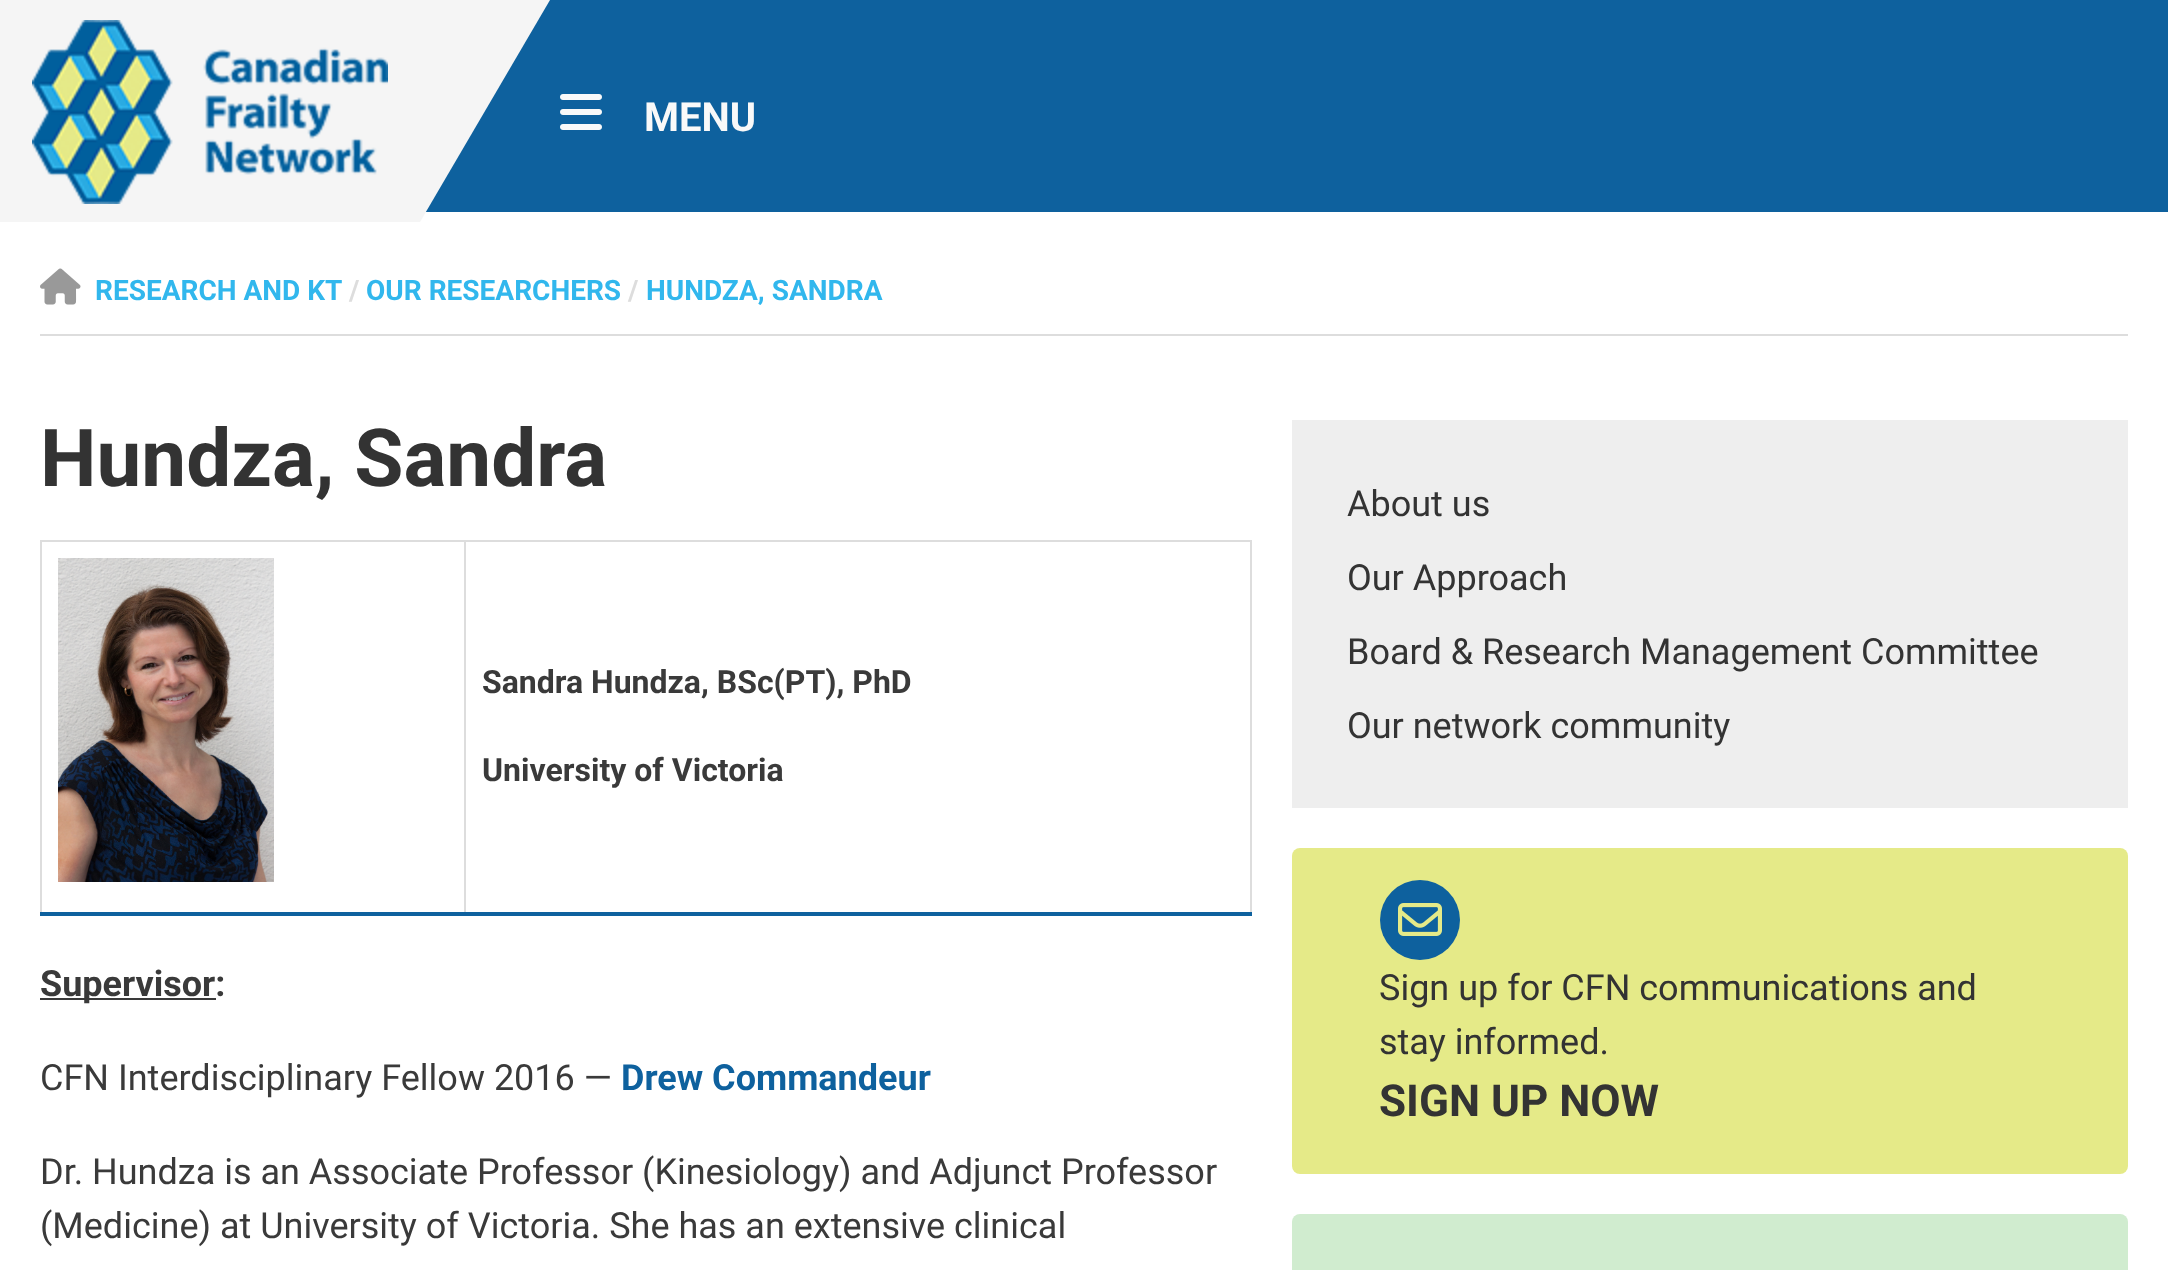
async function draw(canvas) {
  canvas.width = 2168;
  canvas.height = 1270;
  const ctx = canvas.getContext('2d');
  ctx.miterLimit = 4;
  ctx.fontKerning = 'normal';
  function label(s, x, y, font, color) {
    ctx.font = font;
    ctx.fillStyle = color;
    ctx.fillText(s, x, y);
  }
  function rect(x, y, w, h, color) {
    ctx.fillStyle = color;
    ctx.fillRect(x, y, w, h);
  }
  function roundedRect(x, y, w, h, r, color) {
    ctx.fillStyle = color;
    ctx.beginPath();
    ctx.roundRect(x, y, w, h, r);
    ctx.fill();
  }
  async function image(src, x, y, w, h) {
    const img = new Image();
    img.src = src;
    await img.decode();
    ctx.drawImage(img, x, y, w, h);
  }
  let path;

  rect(0, 0, 2168, 1270, '#fff');
  rect(0, 0, 420, 222, '#f5f5f5');
  await image('assets/img1.png', 32, 20, 356, 184);
  rect(425, 0, 1743, 212, '#0e619e');
  ctx.fillStyle = '#f5f5f5';
  path = new Path2D('M420 0V222L550 0Z');
  ctx.fill(path);
  await image('assets/img2.png', 560, 94, 42, 36);
  label('MENU', 644, 131, 'bold 40px Roboto', '#f9f9f9');
  rect(40, 334, 2088, 2, '#ddd');
  await image('assets/img3.png', 40, 268, 41, 37);
  label('RESEARCH AND KT', 95, 300, 'bold 28px Roboto', '#31b7ed');
  label('/', 349, 300, 'bold 28px Roboto', '#ddd');
  label('OUR RESEARCHERS', 366, 300, 'bold 28px Roboto', '#31b7ed');
  label('/', 628, 300, 'bold 28px Roboto', '#ddd');
  label('HUNDZA, SANDRA', 646, 300, 'bold 28px Roboto', '#31b7ed');
  label('Hundza, Sandra', 40, 486, 'bold 80px Roboto', '#333');
  rect(464, 540, 788, 2, '#ddd');
  rect(464, 540, 2, 374, '#ddd');
  rect(40, 540, 426, 2, '#ddd');
  rect(40, 540, 2, 374, '#ddd');
  rect(1250, 540, 2, 374, '#ddd');
  rect(40, 912, 1212, 4, '#0e619e');
  await image('assets/img4.png', 58, 558, 216, 324);
  label('Sandra Hundza, BSc(PT), PhD', 482, 693, 'bold 32px Roboto', '#3a3a3a');
  label('University of Victoria', 482, 781, 'bold 32px Roboto', '#3a3a3a');
  rect(40, 998, 176, 2, '#3a3a3a');
  label('Supervisor:', 40, 996, 'bold 36px Roboto', '#3a3a3a');
  label('CFN Interdisciplinary Fellow 2016 —', 40, 1090, '36px Roboto', '#3a3a3a');
  label('Drew Commandeur', 621, 1090, 'bold 36px Roboto', '#0e619e');
  label('Dr. Hundza is an Associate Professor (Kinesiology) and Adjunct Professor', 40, 1184, '36px Roboto', '#3a3a3a');
  label('(Medicine) at University of Victoria. She has an extensive clinical', 40, 1238, '36px Roboto', '#3a3a3a');
  rect(1292, 420, 836, 388, '#eee');
  label('About us', 1347, 516, '36px Roboto', '#333');
  label('Our Approach', 1347, 590, '36px Roboto', '#333');
  label('Board & Research Management Committee', 1347, 664, '36px Roboto', '#333');
  label('Our network community', 1347, 738, '36px Roboto', '#333');
  roundedRect(1292, 848, 836, 326, 8, '#e5ea88');
  ctx.fillStyle = '#0e619e';
  ctx.beginPath();
  ctx.arc(1420, 920, 40, 0, 2 * Math.PI);
  ctx.fill();
  await image('assets/img5.png', 1398, 903, 44, 33);
  label('Sign up for CFN communications and', 1379, 1000, '36px Roboto', '#333');
  label('stay informed.', 1379, 1054, '36px Roboto', '#333');
  label('SIGN UP NOW', 1379, 1116, 'bold 44px Roboto', '#333');
  roundedRect(1292, 1214, 836, 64, 8, '#d0eccf');
}

draw(document.querySelector('canvas'));
